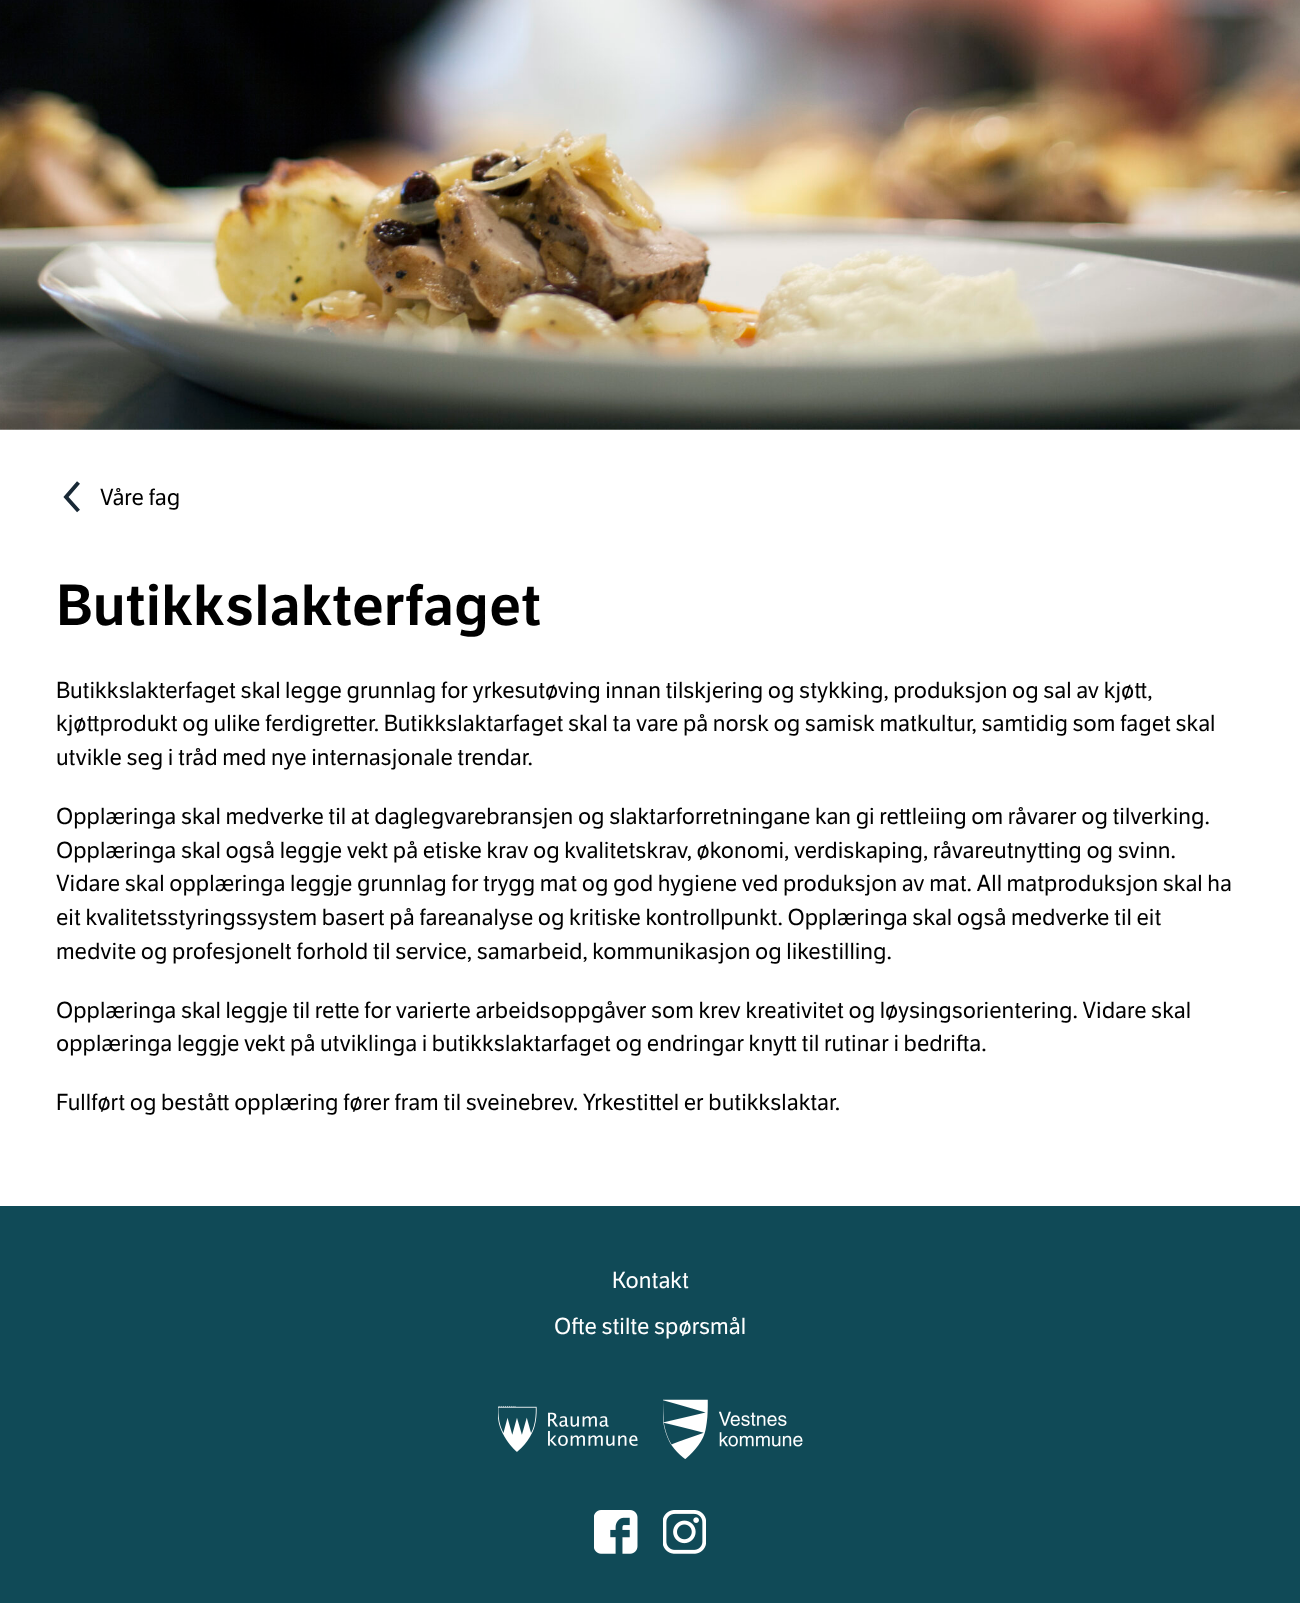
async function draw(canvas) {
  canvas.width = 1300;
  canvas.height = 1603;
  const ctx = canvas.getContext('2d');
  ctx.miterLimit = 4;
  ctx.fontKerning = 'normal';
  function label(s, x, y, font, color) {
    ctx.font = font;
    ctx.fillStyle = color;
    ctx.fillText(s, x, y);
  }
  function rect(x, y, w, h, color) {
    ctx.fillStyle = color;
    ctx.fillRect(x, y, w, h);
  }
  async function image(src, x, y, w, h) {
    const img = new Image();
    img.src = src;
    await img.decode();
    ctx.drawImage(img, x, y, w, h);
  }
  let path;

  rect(0, 0, 1300, 1603, '#fff');
  await image('assets/img1.png', 0, 0, 1300, 430);
  path = new Path2D('M78.5 511L66 497L78.5 482.5');
  ctx.strokeStyle = '#192936';
  ctx.lineWidth = 3.9;
  ctx.stroke(path);
  label('Våre fag', 100, 505, '22.5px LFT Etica', '#000');
  label('Butikkslakterfaget', 56, 625, '600 56.25px LFT Etica', '#000');
  label('Butikkslakterfaget skal legge grunnlag for yrkesutøving innan tilskjering og stykking, produksjon og sal av kjøtt,', 56, 698, '22.5px LFT Etica', '#000');
  label('kjøttprodukt og ulike ferdigretter. Butikkslaktarfaget skal ta vare på norsk og samisk matkultur, samtidig som faget skal', 56, 731, '22.5px LFT Etica', '#000');
  label('utvikle seg i tråd med nye internasjonale trendar.', 56, 765, '22.5px LFT Etica', '#000');
  label('Opplæringa skal medverke til at daglegvarebransjen og slaktarforretningane kan gi rettleiing om råvarer og tilverking.', 56, 824, '22.5px LFT Etica', '#000');
  label('Opplæringa skal også leggje vekt på etiske krav og kvalitetskrav, økonomi, verdiskaping, råvareutnytting og svinn.', 56, 858, '22.5px LFT Etica', '#000');
  label('Vidare skal opplæringa leggje grunnlag for trygg mat og god hygiene ved produksjon av mat. All matproduksjon skal ha', 56, 891, '22.5px LFT Etica', '#000');
  label('eit kvalitetsstyringssystem basert på fareanalyse og kritiske kontrollpunkt. Opplæringa skal også medverke til eit', 56, 925, '22.5px LFT Etica', '#000');
  label('medvite og profesjonelt forhold til service, samarbeid, kommunikasjon og likestilling.', 56, 959, '22.5px LFT Etica', '#000');
  label('Opplæringa skal leggje til rette for varierte arbeidsoppgåver som krev kreativitet og løysingsorientering. Vidare skal', 56, 1018, '22.5px LFT Etica', '#000');
  label('opplæringa leggje vekt på utviklinga i butikkslaktarfaget og endringar knytt til rutinar i bedrifta.', 56, 1051, '22.5px LFT Etica', '#000');
  label('Fullført og bestått opplæring fører fram til sveinebrev. Yrkestittel er butikkslaktar.', 56, 1110, '22.5px LFT Etica', '#000');
  rect(0, 1206, 1300, 397, '#104a57');
  label('Kontakt', 612, 1288, '22.5px LFT Etica', '#fff');
  label('Ofte stilte spørsmål', 554, 1334, '22.5px LFT Etica', '#fff');
  await image('assets/img2.png', 498, 1405, 140, 47);
  await image('assets/img3.png', 663, 1399, 140, 60);
  await image('assets/img4.png', 594, 1510, 44, 44);
  await image('assets/img5.png', 663, 1510, 43, 44);
}

draw(document.querySelector('canvas'));
